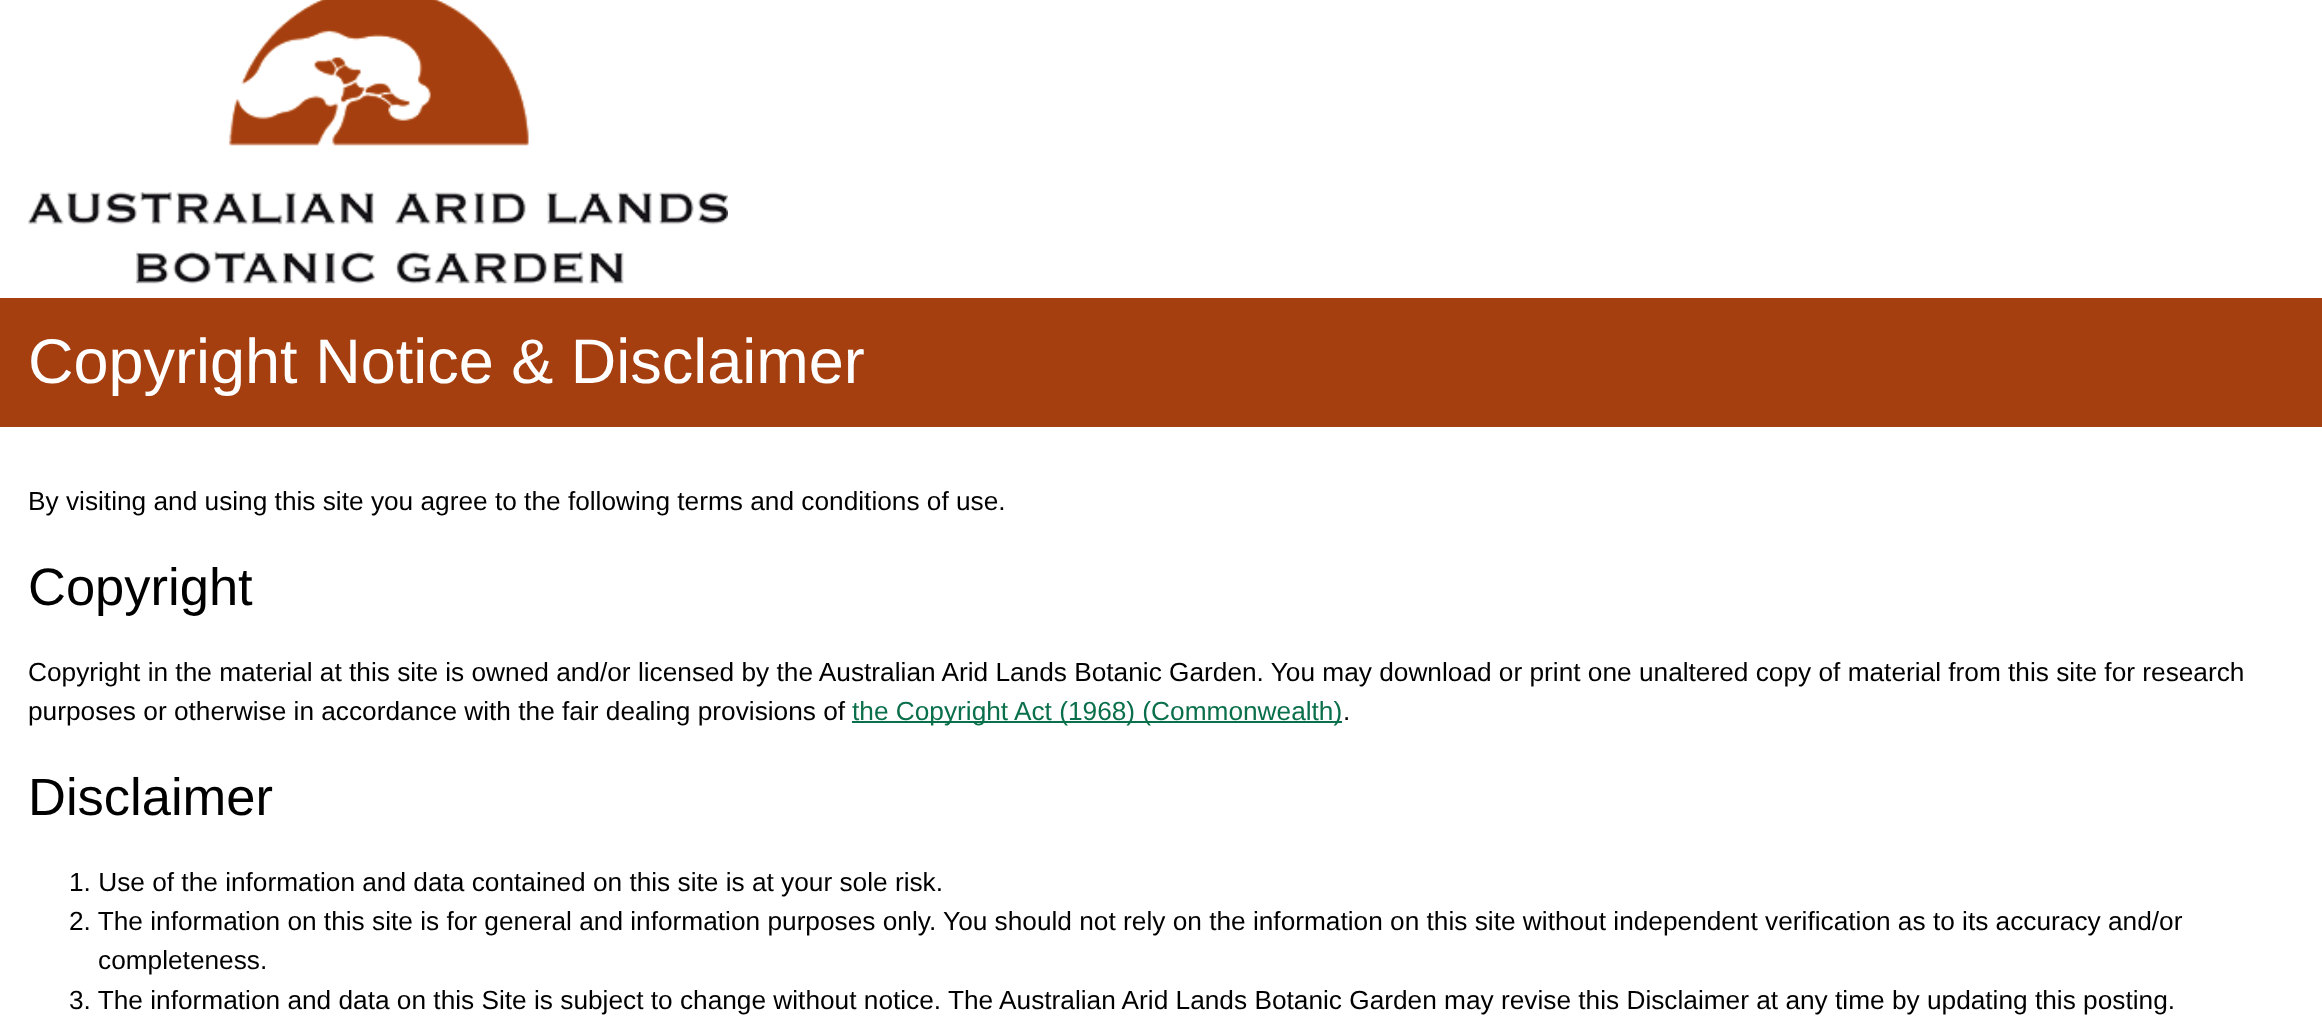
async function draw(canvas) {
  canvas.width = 2322;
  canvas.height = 1030;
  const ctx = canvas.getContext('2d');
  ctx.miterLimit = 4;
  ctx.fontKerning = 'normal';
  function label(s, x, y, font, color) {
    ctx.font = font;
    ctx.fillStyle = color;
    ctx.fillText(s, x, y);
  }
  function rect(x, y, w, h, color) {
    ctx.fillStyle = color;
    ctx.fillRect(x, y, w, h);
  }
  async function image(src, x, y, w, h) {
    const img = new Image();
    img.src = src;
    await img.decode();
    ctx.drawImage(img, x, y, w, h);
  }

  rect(0, 0, 2322, 1030, '#fff');
  await image('assets/img1.png', 28, 0, 700, 284);
  rect(0, 298, 2322, 129, '#a53f0f');
  label('Copyright Notice & Disclaimer', 28, 383, '63px Liberation Sans', '#fff');
  label('By visiting and using this site you agree to the following terms and conditions of use.', 28, 510, '26.25px Liberation Sans', '#000');
  label('Copyright', 28, 605, '52.5px Liberation Sans', '#000');
  label('Copyright in the material at this site is owned and/or licensed by the Australian Arid Lands Botanic Garden. You may download or print one unaltered copy of material from this site for research', 28, 681, '26.25px Liberation Sans', '#000');
  label('purposes or otherwise in accordance with the fair dealing provisions of', 28, 720, '26.25px Liberation Sans', '#000');
  rect(852, 721, 490, 2, '#0a6f4b');
  label('the Copyright Act (1968) (Commonwealth)', 852, 720, '26.25px Liberation Sans', '#0a6f4b');
  label('.', 1343, 720, '26.25px Liberation Sans', '#000');
  label('Disclaimer', 28, 815, '52.5px Liberation Sans', '#000');
  label('1. Use of the information and data contained on this site is at your sole risk.', 69, 891, '26.25px Liberation Sans', '#000');
  label('2. The information on this site is for general and information purposes only. You should not rely on the information on this site without independent verification as to its accuracy and/or', 69, 930, '26.25px Liberation Sans', '#000');
  label('completeness.', 98, 969, '26.25px Liberation Sans', '#000');
  label('3. The information and data on this Site is subject to change without notice. The Australian Arid Lands Botanic Garden may revise this Disclaimer at any time by updating this posting.', 69, 1009, '26.25px Liberation Sans', '#000');
}

draw(document.querySelector('canvas'));
